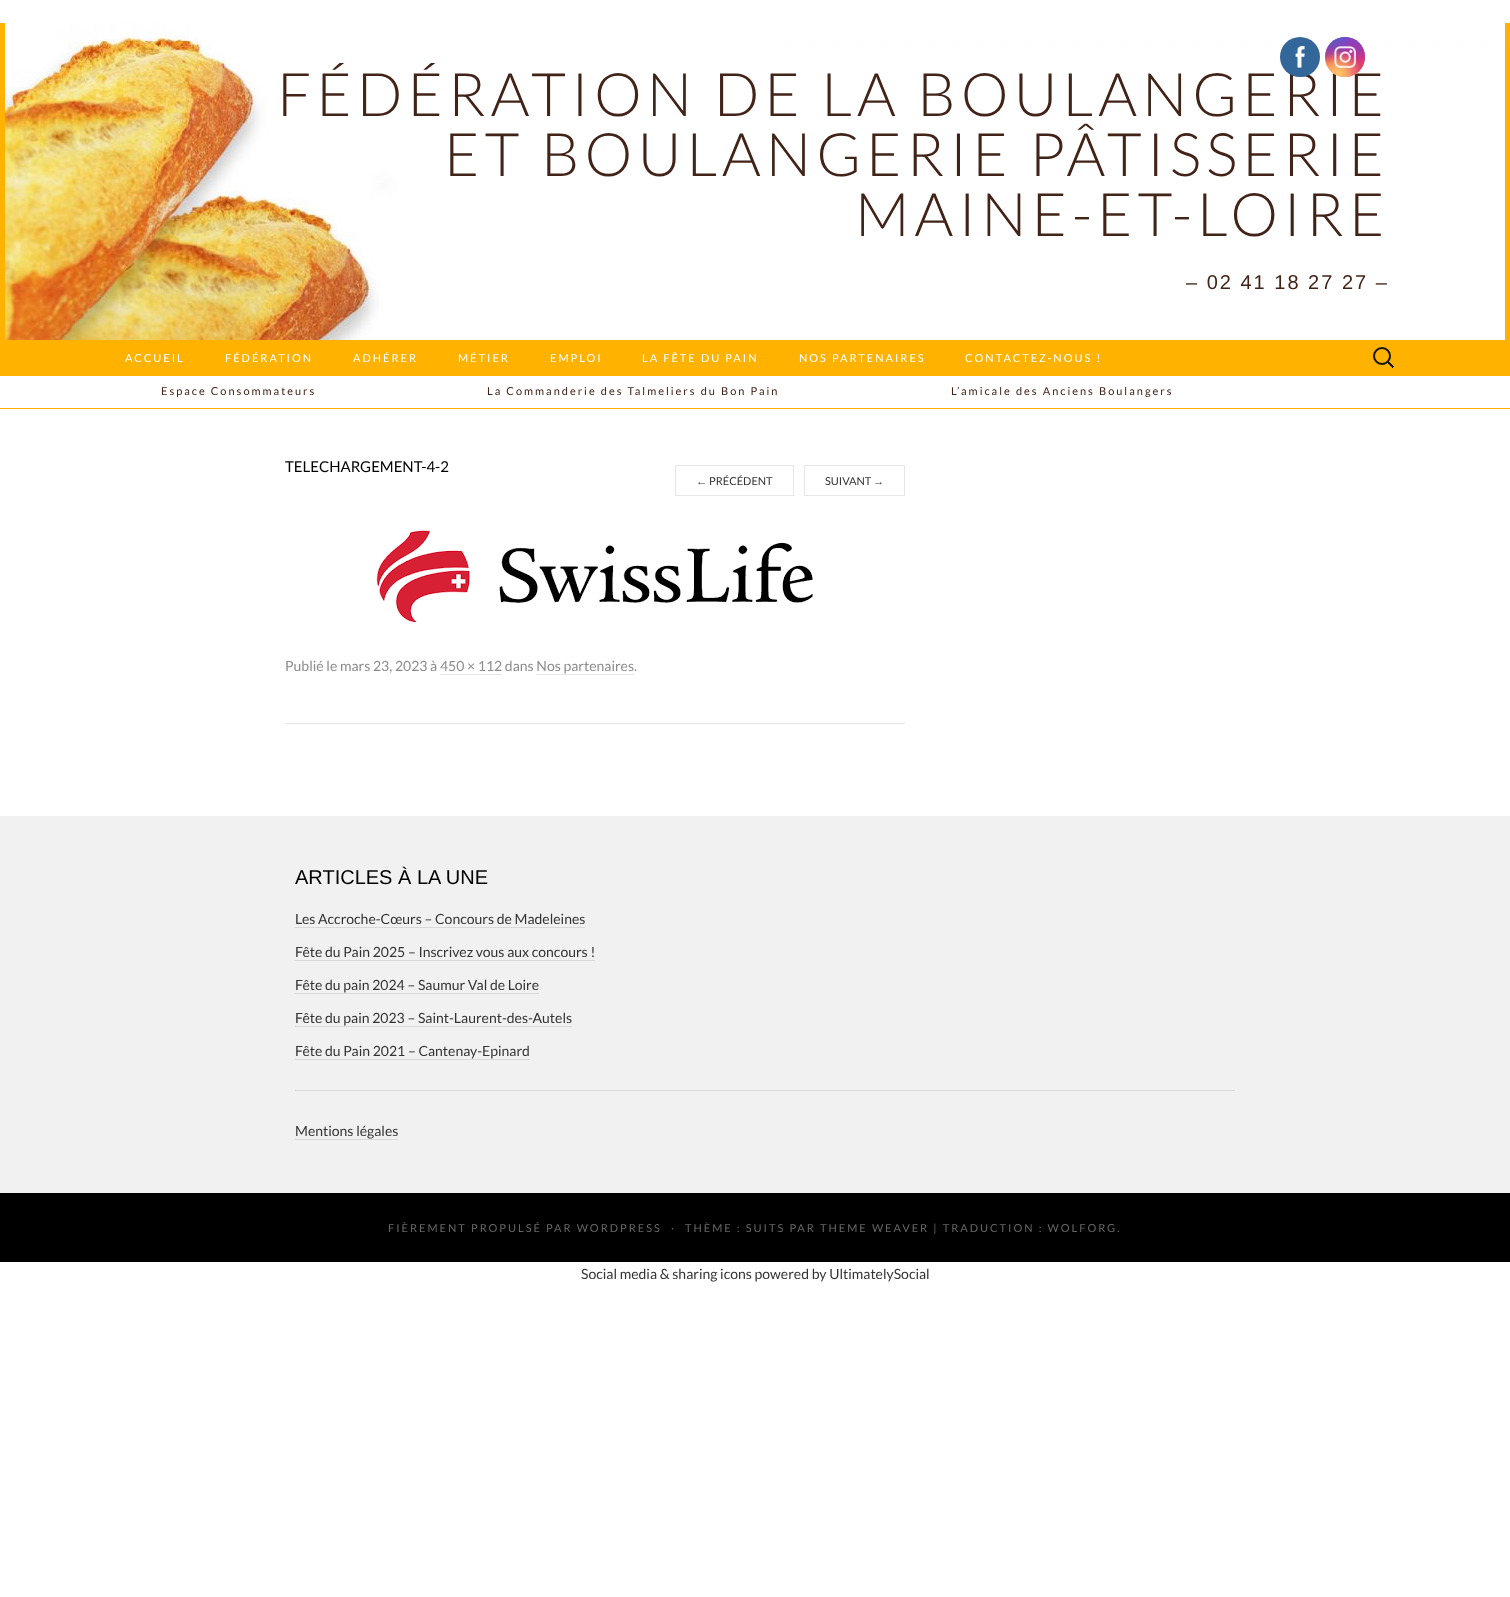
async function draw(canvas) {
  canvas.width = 1510;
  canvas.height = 1597;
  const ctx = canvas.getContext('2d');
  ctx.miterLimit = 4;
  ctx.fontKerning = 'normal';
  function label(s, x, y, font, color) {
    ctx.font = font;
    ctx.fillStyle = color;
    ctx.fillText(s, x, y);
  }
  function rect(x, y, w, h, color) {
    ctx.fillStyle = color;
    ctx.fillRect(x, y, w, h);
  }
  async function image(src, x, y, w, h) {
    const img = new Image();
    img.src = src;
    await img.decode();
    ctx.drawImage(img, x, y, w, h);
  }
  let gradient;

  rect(0, 0, 1510, 1597, '#fff');
  rect(0, 23, 1510, 353, '#ffb200');
  await image('assets/img3.png', 5, 23, 1500, 317);
  ctx.letterSpacing = '5px';
  label('FÉDÉRATION DE LA BOULANGERIE', 277, 116, '300 60px Lato', '#412318');
  ctx.fillStyle = '#369';
  ctx.beginPath();
  ctx.arc(1300, 57, 20, 0, 2 * Math.PI);
  ctx.fill();
  await image('assets/img1.png', 1295, 46, 10, 22);
  gradient = ctx.createLinearGradient(1345, 37, 1345, 77);
  gradient.addColorStop(0, '#6559ca');
  gradient.addColorStop(0.3, '#bc318f');
  gradient.addColorStop(0.5, '#e33f5f');
  gradient.addColorStop(0.7, '#f77638');
  gradient.addColorStop(1, '#fec66d');
  ctx.fillStyle = gradient;
  ctx.beginPath();
  ctx.arc(1345, 57, 20, 0, 2 * Math.PI);
  ctx.fill();
  gradient = ctx.createRadialGradient(1365, 77, 0, 1365, 77, 57);
  gradient.addColorStop(0, '#d9317a');
  gradient.addColorStop(1, '#d9317a00');
  ctx.fillStyle = gradient;
  ctx.beginPath();
  ctx.arc(1345, 57, 20, 0, 2 * Math.PI);
  ctx.fill();
  gradient = ctx.createRadialGradient(1349, 14.5, 0, 1349, 14.5, 34);
  gradient.addColorStop(0, '#893dc2');
  gradient.addColorStop(0.5, '#893dc200');
  ctx.fillStyle = gradient;
  ctx.beginPath();
  ctx.arc(1345, 57, 20, 0, 2 * Math.PI);
  ctx.save();
  ctx.clip();
  ctx.scale(1, 68 / 34);
  ctx.fillRect(0, 0, 1510, 799);
  ctx.restore();
  gradient = ctx.createRadialGradient(1365, 37, 0, 1365, 37, 57);
  gradient.addColorStop(0, '#893dc2');
  gradient.addColorStop(0.5, '#893dc200');
  ctx.fillStyle = gradient;
  ctx.beginPath();
  ctx.arc(1345, 57, 20, 0, 2 * Math.PI);
  ctx.fill();
  gradient = ctx.createRadialGradient(1333, 9, 0, 1333, 9, 45);
  gradient.addColorStop(0, '#5258cf');
  gradient.addColorStop(0.5, '#5258cf00');
  ctx.fillStyle = gradient;
  ctx.beginPath();
  ctx.arc(1345, 57, 20, 0, 2 * Math.PI);
  ctx.save();
  ctx.clip();
  ctx.scale(1, 85 / 45);
  ctx.fillRect(0, 0, 1510, 846);
  ctx.restore();
  gradient = ctx.createRadialGradient(1325, 21.68, 0, 1325, 21.68, 57);
  gradient.addColorStop(0, '#5258cf');
  gradient.addColorStop(0.5, '#5258cf00');
  ctx.fillStyle = gradient;
  ctx.beginPath();
  ctx.arc(1345, 57, 20, 0, 2 * Math.PI);
  ctx.save();
  ctx.clip();
  ctx.scale(1, 71 / 57);
  ctx.fillRect(0, 0, 1510, 1283);
  ctx.restore();
  gradient = ctx.createRadialGradient(1325, 93, 0, 1325, 93, 69);
  gradient.addColorStop(0, '#fec564');
  gradient.addColorStop(0.5, '#fec56400');
  ctx.fillStyle = gradient;
  ctx.beginPath();
  ctx.arc(1345, 57, 20, 0, 2 * Math.PI);
  ctx.fill();
  gradient = ctx.createRadialGradient(1339, 73, 0, 1339, 73, 44);
  gradient.addColorStop(0, '#fec564');
  gradient.addColorStop(0.5, '#fec56400');
  ctx.fillStyle = gradient;
  ctx.beginPath();
  ctx.arc(1345, 57, 20, 0, 2 * Math.PI);
  ctx.fill();
  await image('assets/img2.png', 1334, 46, 22, 22);
  label('ET BOULANGERIE PÂTISSERIE', 444, 176, '300 60px Lato', '#412318');
  label('MAINE-ET-LOIRE', 855, 236, '300 60px Lato', '#412318');
  ctx.letterSpacing = '2px';
  label('– 02 41 18 27 27 –', 1186, 289, '20px Liberation Sans', '#412318');
  label('ACCUEIL', 125, 362, '11px Lato', '#fff');
  label('FÉDÉRATION', 225, 362, '11px Lato', '#fff');
  label('ADHÉRER', 353, 362, '11px Lato', '#fff');
  label('MÉTIER', 458, 362, '11px Lato', '#fff');
  label('EMPLOI', 550, 362, '11px Lato', '#fff');
  label('LA FÊTE DU PAIN', 642, 362, '11px Lato', '#fff');
  label('NOS PARTENAIRES', 799, 362, '11px Lato', '#fff');
  label('CONTACTEZ-NOUS !', 965, 362, '11px Lato', '#fff');
  await image('assets/img4.png', 1373, 347, 21, 21);
  rect(0, 408, 1510, 1, '#ffb200');
  label('Espace Consommateurs', 161, 395, '11px Lato', '#412318');
  label('La Commanderie des Talmeliers du Bon Pain', 487, 395, '11px Lato', '#412318');
  label('L’amicale des Anciens Boulangers', 951, 395, '11px Lato', '#412318');
  rect(285, 723, 620, 1, '#e6e6e6');
  ctx.letterSpacing = '0px';
  label('TELECHARGEMENT-4-2', 285, 472, '15px Lato', '#000');
  ctx.strokeStyle = '#e6e6e6';
  ctx.strokeRect(675.5, 465.5, 118, 30);
  label('←', 696, 485, '11px Liberation Sans', '#333');
  label('PRÉCÉDENT', 709, 485, '11px Lato', '#333');
  ctx.strokeRect(804.5, 465.5, 100, 30);
  label('SUIVANT', 825, 485, '11px Lato', '#333');
  label('→', 873, 485, '11px Liberation Sans', '#333');
  await image('assets/img5.png', 370, 530, 450, 92);
  label('Publié le mars 23, 2023 à 450 × 112 dans Nos partenaires.', 285, 671, '14px Lato', '#8c8c8c');
  rect(440, 674, 62, 1, '#e6e6e6');
  rect(536, 674, 98, 1, '#e6e6e6');
  rect(0, 816, 1510, 377, '#f1f1f1');
  rect(295, 1090, 940, 1, '#d9d9d9');
  label('ARTICLES À LA UNE', 295, 884, '20px Liberation Sans', '#000');
  label('Les Accroche-Cœurs – Concours de Madeleines', 295, 924, '14px Lato', '#333');
  rect(295, 927, 290, 1, '#d9d9d9');
  label('Fête du Pain 2025 – Inscrivez vous aux concours !', 295, 957, '14px Lato', '#333');
  rect(295, 960, 300, 1, '#d9d9d9');
  label('Fête du pain 2024 – Saumur Val de Loire', 295, 990, '14px Lato', '#333');
  rect(295, 993, 244, 1, '#d9d9d9');
  label('Fête du pain 2023 – Saint-Laurent-des-Autels', 295, 1023, '14px Lato', '#333');
  rect(295, 1026, 277, 1, '#d9d9d9');
  label('Fête du Pain 2021 – Cantenay-Epinard', 295, 1056, '14px Lato', '#333');
  rect(295, 1059, 235, 1, '#d9d9d9');
  label('Mentions légales', 295, 1136, '14px Lato', '#333');
  rect(295, 1139, 103, 1, '#d9d9d9');
  rect(0, 1193, 1510, 69, '#000');
  ctx.letterSpacing = '2px';
  label('FIÈREMENT PROPULSÉ PAR WORDPRESS', 388, 1232, '11px Lato', '#666');
  label('·', 671, 1232, '11px Lato', '#666');
  label('THÈME : SUITS PAR THEME WEAVER | TRADUCTION : WOLFORG.', 685, 1232, '11px Lato', '#666');
  ctx.letterSpacing = '0px';
  label('Social media & sharing icons powered by UltimatelySocial', 581, 1279, '14px Lato', '#333');
}

draw(document.querySelector('canvas'));
